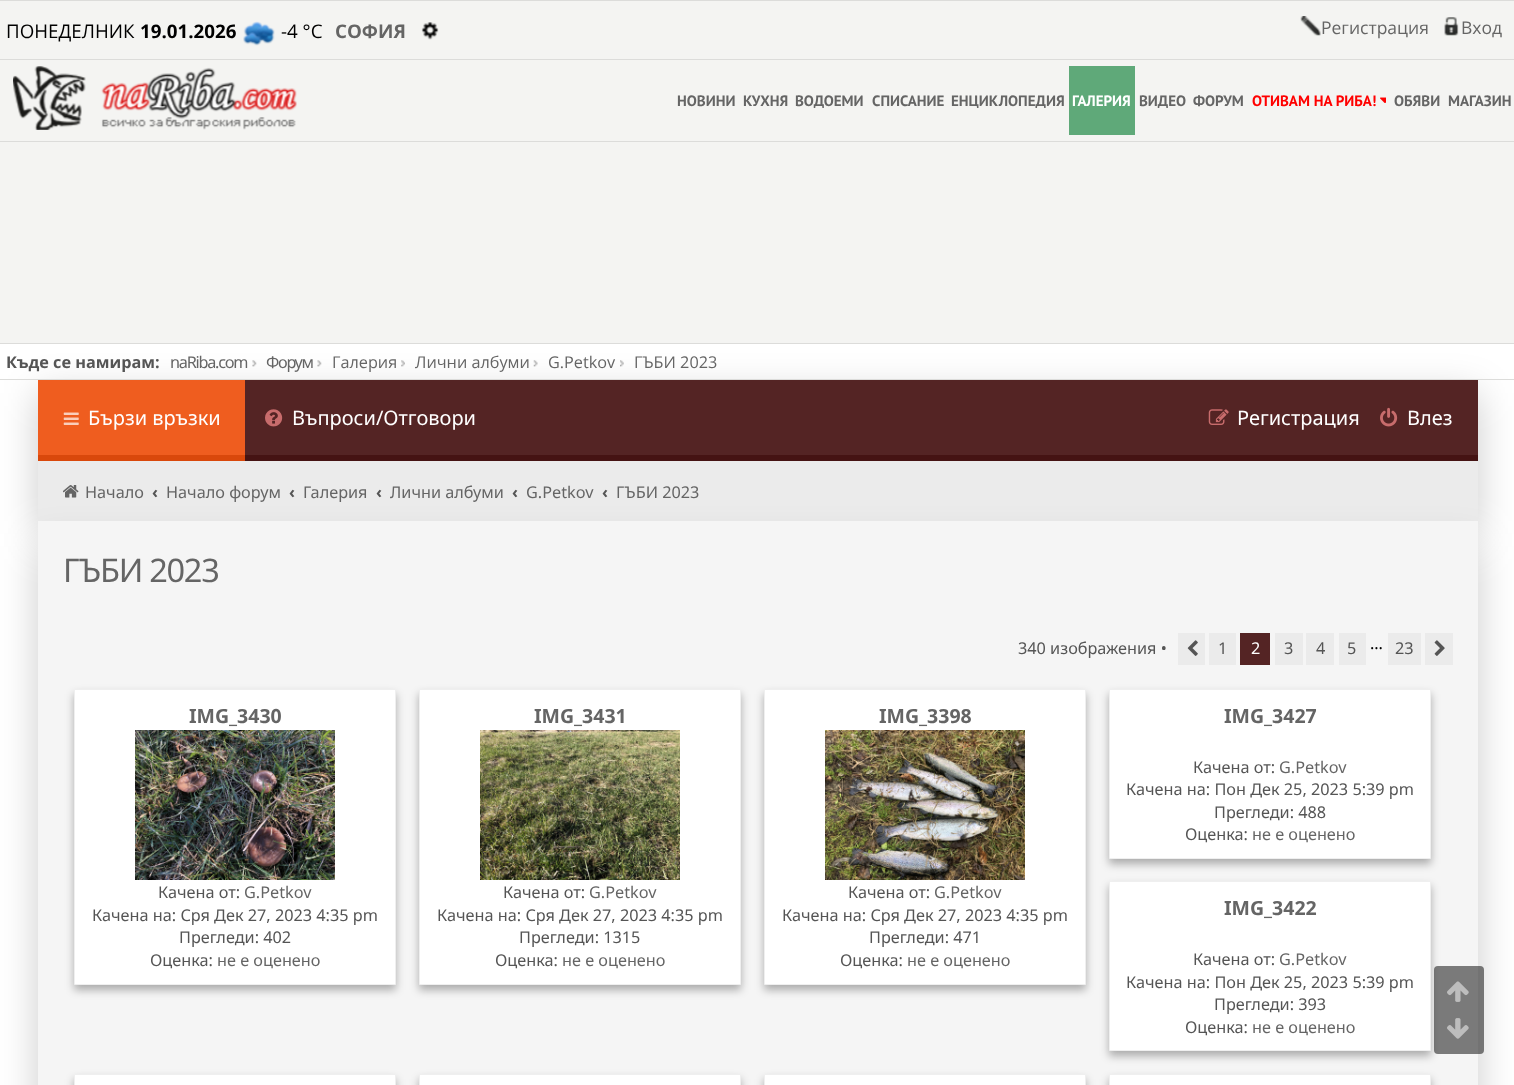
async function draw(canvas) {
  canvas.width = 1514;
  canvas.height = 1085;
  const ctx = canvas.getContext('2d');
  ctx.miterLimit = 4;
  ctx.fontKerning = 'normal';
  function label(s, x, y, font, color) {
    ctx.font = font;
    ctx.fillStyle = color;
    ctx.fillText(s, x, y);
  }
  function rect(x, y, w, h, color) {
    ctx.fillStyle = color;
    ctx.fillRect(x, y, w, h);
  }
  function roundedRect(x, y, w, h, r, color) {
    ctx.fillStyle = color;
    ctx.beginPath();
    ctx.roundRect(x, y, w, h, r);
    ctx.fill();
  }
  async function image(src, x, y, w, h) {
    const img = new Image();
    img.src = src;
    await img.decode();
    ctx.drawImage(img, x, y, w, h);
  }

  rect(0, 0, 1514, 1085, '#fff');
  rect(0, 0, 1514, 1, '#dcdcda');
  ctx.fillStyle = '#00000033';
  ctx.filter = 'blur(19px)';
  ctx.beginPath();
  ctx.rect(38, 393, 1440, 141);
  ctx.fill();
  ctx.filter = 'none';
  rect(0, 1, 1514, 342, '#f4f4f2');
  label('ПОНЕДЕЛНИК', 6, 38, '18.75px Open Sans', '#000');
  label('19.01.2026', 140, 38, 'bold 18.75px Open Sans', '#000');
  await image('assets/img1.png', 243, 21, 32, 25);
  label('-4 °C', 281, 38, '18.75px Open Sans', '#000');
  label('СОФИЯ', 335, 38, 'bold 18.75px Open Sans', '#656565');
  await image('assets/img2.png', 421, 22, 18, 18);
  await image('assets/img3.png', 1300, 16, 21, 20);
  label('Регистрация', 1321, 34, '17.5px Open Sans', '#656565');
  await image('assets/img4.png', 1444, 17, 15, 19);
  label('Вход', 1461, 34, '17.5px Open Sans', '#656565');
  rect(0, 59, 1514, 1, '#dcdcda');
  rect(0, 141, 1514, 1, '#dcdcda');
  await image('assets/img5.png', 13, 66, 284, 64);
  label('НОВИНИ', 677, 106, 'bold 15px PT Sans', '#656565');
  label('КУХНЯ', 743, 106, 'bold 15px PT Sans', '#656565');
  label('ВОДОЕМИ', 795, 106, 'bold 15px PT Sans', '#656565');
  label('СПИСАНИЕ', 872, 106, 'bold 15px PT Sans', '#656565');
  label('ЕНЦИКЛОПЕДИЯ', 951, 106, 'bold 15px PT Sans', '#656565');
  rect(1069, 66, 66, 69, '#5fa979');
  label('ГАЛЕРИЯ', 1072, 106, 'bold 15px PT Sans', '#fff');
  label('ВИДЕО', 1139, 106, 'bold 15px PT Sans', '#656565');
  label('ФОРУМ', 1193, 106, 'bold 15px PT Sans', '#656565');
  label('ОТИВАМ НА РИБА!', 1252, 106, 'bold 15px PT Sans', '#f00');
  await image('assets/img6.png', 1380, 97, 6, 6);
  label('ОБЯВИ', 1394, 106, 'bold 15px PT Sans', '#656565');
  label('МАГАЗИН', 1448, 106, 'bold 15px PT Sans', '#656565');
  rect(0, 343, 1514, 1, '#dcdcda');
  rect(0, 379, 1514, 1, '#dcdcda');
  label('Къде се намирам:', 6, 368, 'bold 16.25px Open Sans', '#555');
  ctx.letterSpacing = '-1.25px';
  label('naRiba.com', 170, 368, '16.25px Noto Sans', '#656565');
  await image('assets/img7.png', 252, 360, 5, 7);
  label('Форум', 266, 368, '16.25px Noto Sans', '#656565');
  await image('assets/img7.png', 317, 360, 5, 7);
  ctx.letterSpacing = '0px';
  label('Галерия', 332, 368, '16.25px Open Sans', '#656565');
  await image('assets/img8.png', 401, 360, 4, 7);
  label('Лични албуми', 415, 368, '16.25px Open Sans', '#656565');
  await image('assets/img9.png', 533, 360, 5, 7);
  label('G.Petkov', 548, 368, '16.25px Open Sans', '#656565');
  await image('assets/img10.png', 620, 360, 4, 7);
  label('ГЪБИ 2023', 634, 368, '16.25px Open Sans', '#656565');
  rect(245, 380, 1233, 75, '#542424');
  rect(245, 455, 1233, 6, '#451313');
  rect(38, 380, 207, 75, '#ef5d1f');
  rect(38, 455, 207, 6, '#d9480b');
  await image('assets/img11.png', 63, 412, 16, 13);
  label('Бързи връзки', 88, 425, '20px Noto Sans', '#fff');
  await image('assets/img12.png', 265, 409, 18, 18);
  label('Въпроси/Отговори', 292, 425, '20px Noto Sans', '#fff');
  await image('assets/img13.png', 1208, 409, 21, 16);
  label('Регистрация', 1237, 425, '20px Noto Sans', '#fff');
  await image('assets/img14.png', 1380, 407, 18, 20);
  label('Влез', 1407, 425, '20px Noto Sans', '#fff');
  rect(38, 461, 1440, 60, '#ebebeb');
  ctx.fillStyle = '#00000033';
  ctx.filter = 'blur(19px)';
  ctx.beginPath();
  ctx.rect(38, 546, 1440, 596);
  ctx.fill();
  ctx.filter = 'none';
  await image('assets/img15.png', 63, 485, 16, 13);
  label('Начало', 85, 498, '16.25px Noto Sans', '#656565');
  label('‹', 152, 498, 'bold 16.25px Noto Sans', '#555');
  label('Начало форум', 166, 498, '16.25px Noto Sans', '#656565');
  label('‹', 289, 498, 'bold 16.25px Noto Sans', '#555');
  label('Галерия', 303, 498, '16.25px Noto Sans', '#656565');
  label('‹', 376, 498, 'bold 16.25px Noto Sans', '#555');
  label('Лични албуми', 390, 498, '16.25px Noto Sans', '#656565');
  label('‹', 512, 498, 'bold 16.25px Noto Sans', '#555');
  label('G.Petkov', 526, 498, '16.25px Noto Sans', '#656565');
  label('‹', 602, 498, 'bold 16.25px Noto Sans', '#555');
  label('ГЪБИ 2023', 616, 498, '16.25px Noto Sans', '#656565');
  rect(38, 521, 1440, 564, '#f5f5f5');
  ctx.letterSpacing = '-1.25px';
  label('ГЪБИ 2023', 63, 582, '32.5px Noto Sans', '#656565');
  ctx.letterSpacing = '0px';
  label('340 изображения •', 1018, 654, '16.25px Noto Sans', '#555');
  rect(1178, 633, 27, 32, '#ebebeb');
  await image('assets/img16.png', 1187, 640, 11, 16);
  rect(1209, 633, 27, 32, '#ebebeb');
  label('1', 1218, 654, '16.25px Noto Sans', '#555');
  rect(1240, 633, 30, 32, '#542424');
  label('2', 1251, 654, '16.25px Noto Sans', '#fff');
  rect(1275, 633, 28, 32, '#ebebeb');
  label('3', 1284, 654, '16.25px Noto Sans', '#555');
  rect(1306, 633, 28, 32, '#ebebeb');
  label('4', 1316, 654, '16.25px Noto Sans', '#555');
  rect(1339, 633, 27, 32, '#ebebeb');
  label('5', 1347, 654, '16.25px Noto Sans', '#555');
  label('…', 1370, 649, '16.25px Noto Sans', '#000');
  rect(1388, 633, 33, 32, '#ebebeb');
  label('23', 1395, 654, '16.25px Noto Sans', '#555');
  rect(1425, 633, 28, 32, '#ebebeb');
  await image('assets/img17.png', 1434, 640, 11, 16);
  ctx.fillStyle = '#0000004d';
  ctx.filter = 'blur(4px)';
  ctx.beginPath();
  ctx.rect(74, 694, 322, 296);
  ctx.fill();
  ctx.filter = 'none';
  ctx.fillStyle = '#fff';
  ctx.beginPath();
  ctx.rect(74.5, 689.5, 321, 295);
  ctx.fill();
  ctx.strokeStyle = '#efefef';
  ctx.stroke();
  label('IMG_3430', 189, 723, 'bold 19.5px Noto Sans', '#656565');
  await image('assets/img18.png', 135, 730, 200, 150);
  label('Качена от:', 158, 898, '16.25px Noto Sans', '#555');
  label('G.Petkov', 244, 898, '16.25px Noto Sans', '#656565');
  label('Качена на: Сря Дек 27, 2023 4:35 pm', 92, 921, '16.25px Noto Sans', '#555');
  label('Прегледи: 402', 179, 943, '16.25px Noto Sans', '#555');
  label('Оценка:', 150, 966, '16.25px Noto Sans', '#555');
  label('не е оценено', 217, 966, '16.25px Noto Sans', '#656565');
  ctx.fillStyle = '#0000004d';
  ctx.filter = 'blur(4px)';
  ctx.beginPath();
  ctx.rect(419, 694, 322, 296);
  ctx.fill();
  ctx.filter = 'none';
  ctx.fillStyle = '#fff';
  ctx.beginPath();
  ctx.rect(419.5, 689.5, 321, 295);
  ctx.fill();
  ctx.stroke();
  label('IMG_3431', 534, 723, 'bold 19.5px Noto Sans', '#656565');
  await image('assets/img19.png', 480, 730, 200, 150);
  label('Качена от:', 503, 898, '16.25px Noto Sans', '#555');
  label('G.Petkov', 589, 898, '16.25px Noto Sans', '#656565');
  label('Качена на: Сря Дек 27, 2023 4:35 pm', 437, 921, '16.25px Noto Sans', '#555');
  label('Прегледи: 1315', 519, 943, '16.25px Noto Sans', '#555');
  label('Оценка:', 495, 966, '16.25px Noto Sans', '#555');
  label('не е оценено', 562, 966, '16.25px Noto Sans', '#656565');
  ctx.fillStyle = '#0000004d';
  ctx.filter = 'blur(4px)';
  ctx.beginPath();
  ctx.rect(764, 694, 322, 296);
  ctx.fill();
  ctx.filter = 'none';
  ctx.fillStyle = '#fff';
  ctx.beginPath();
  ctx.rect(764.5, 689.5, 321, 295);
  ctx.fill();
  ctx.stroke();
  label('IMG_3398', 879, 723, 'bold 19.5px Noto Sans', '#656565');
  await image('assets/img20.png', 825, 730, 200, 150);
  label('Качена от:', 848, 898, '16.25px Noto Sans', '#555');
  label('G.Petkov', 934, 898, '16.25px Noto Sans', '#656565');
  label('Качена на: Сря Дек 27, 2023 4:35 pm', 782, 921, '16.25px Noto Sans', '#555');
  label('Прегледи: 471', 869, 943, '16.25px Noto Sans', '#555');
  label('Оценка:', 840, 966, '16.25px Noto Sans', '#555');
  label('не е оценено', 907, 966, '16.25px Noto Sans', '#656565');
  ctx.fillStyle = '#0000004d';
  ctx.filter = 'blur(4px)';
  ctx.beginPath();
  ctx.rect(1109, 694, 322, 170);
  ctx.fill();
  ctx.filter = 'none';
  ctx.fillStyle = '#fff';
  ctx.beginPath();
  ctx.rect(1109.5, 689.5, 321, 169);
  ctx.fill();
  ctx.stroke();
  label('IMG_3427', 1224, 723, 'bold 19.5px Noto Sans', '#656565');
  label('Качена от:', 1193, 773, '16.25px Noto Sans', '#555');
  label('G.Petkov', 1279, 773, '16.25px Noto Sans', '#656565');
  label('Качена на: Пон Дек 25, 2023 5:39 pm', 1126, 795, '16.25px Noto Sans', '#555');
  label('Прегледи: 488', 1214, 818, '16.25px Noto Sans', '#555');
  label('Оценка:', 1185, 840, '16.25px Noto Sans', '#555');
  label('не е оценено', 1252, 840, '16.25px Noto Sans', '#656565');
  ctx.fillStyle = '#0000004d';
  ctx.filter = 'blur(4px)';
  ctx.beginPath();
  ctx.rect(1109, 886, 322, 170);
  ctx.fill();
  ctx.filter = 'none';
  ctx.fillStyle = '#fff';
  ctx.beginPath();
  ctx.rect(1109.5, 881.5, 321, 169);
  ctx.fill();
  ctx.stroke();
  label('IMG_3422', 1224, 915, 'bold 19.5px Noto Sans', '#656565');
  label('Качена от:', 1193, 965, '16.25px Noto Sans', '#555');
  label('G.Petkov', 1279, 965, '16.25px Noto Sans', '#656565');
  label('Качена на: Пон Дек 25, 2023 5:39 pm', 1126, 988, '16.25px Noto Sans', '#555');
  label('Прегледи: 393', 1214, 1010, '16.25px Noto Sans', '#555');
  label('Оценка:', 1185, 1033, '16.25px Noto Sans', '#555');
  label('не е оценено', 1252, 1033, '16.25px Noto Sans', '#656565');
  ctx.fillStyle = '#0000004d';
  ctx.filter = 'blur(4px)';
  ctx.beginPath();
  ctx.rect(74, 1079, 322, 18);
  ctx.fill();
  ctx.filter = 'none';
  ctx.fillStyle = '#fff';
  ctx.beginPath();
  ctx.rect(74.5, 1074.5, 321, 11);
  ctx.fill();
  ctx.stroke();
  ctx.fillStyle = '#0000004d';
  ctx.filter = 'blur(4px)';
  ctx.beginPath();
  ctx.rect(419, 1079, 322, 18);
  ctx.fill();
  ctx.filter = 'none';
  ctx.fillStyle = '#fff';
  ctx.beginPath();
  ctx.rect(419.5, 1074.5, 321, 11);
  ctx.fill();
  ctx.stroke();
  ctx.fillStyle = '#0000004d';
  ctx.filter = 'blur(4px)';
  ctx.beginPath();
  ctx.rect(764, 1079, 322, 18);
  ctx.fill();
  ctx.filter = 'none';
  ctx.fillStyle = '#fff';
  ctx.beginPath();
  ctx.rect(764.5, 1074.5, 321, 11);
  ctx.fill();
  ctx.stroke();
  ctx.fillStyle = '#0000004d';
  ctx.filter = 'blur(4px)';
  ctx.beginPath();
  ctx.rect(1109, 1079, 322, 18);
  ctx.fill();
  ctx.filter = 'none';
  ctx.fillStyle = '#fff';
  ctx.beginPath();
  ctx.rect(1109.5, 1074.5, 321, 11);
  ctx.fill();
  ctx.stroke();
  roundedRect(1434, 966, 50, 88, 4, '#00000080');
  await image('assets/img21.png', 1447, 981, 22, 21);
  await image('assets/img22.png', 1447, 1018, 22, 21);
}

draw(document.querySelector('canvas'));
